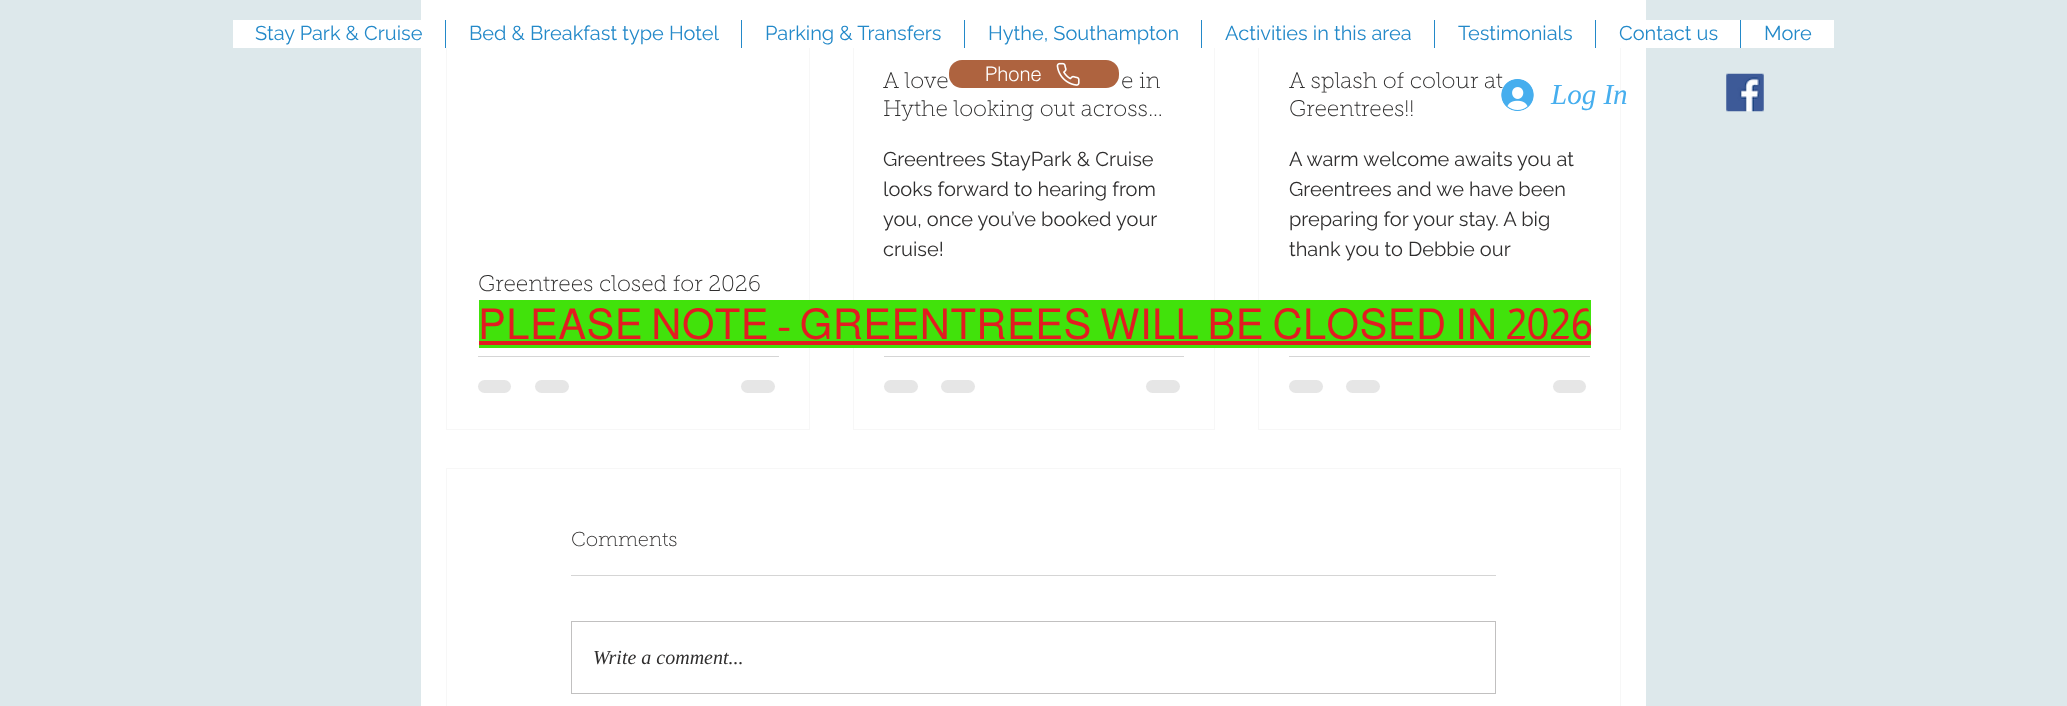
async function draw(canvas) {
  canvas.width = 2067;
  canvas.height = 706;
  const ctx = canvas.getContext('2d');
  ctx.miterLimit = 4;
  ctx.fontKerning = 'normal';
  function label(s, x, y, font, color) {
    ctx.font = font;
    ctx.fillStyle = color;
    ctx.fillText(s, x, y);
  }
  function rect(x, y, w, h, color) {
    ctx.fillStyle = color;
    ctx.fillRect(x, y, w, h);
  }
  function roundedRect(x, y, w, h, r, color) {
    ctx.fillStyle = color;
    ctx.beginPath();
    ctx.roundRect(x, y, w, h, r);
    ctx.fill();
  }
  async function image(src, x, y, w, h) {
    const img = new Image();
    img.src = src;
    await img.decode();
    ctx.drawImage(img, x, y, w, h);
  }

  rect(0, 0, 2067, 706, '#dde8eb');
  rect(421, 0, 1225, 706, '#fff');
  ctx.strokeStyle = '#f7f7f7';
  ctx.strokeRect(853.5, 39.5, 361, 390);
  ctx.strokeRect(1258.5, 39.5, 362, 390);
  ctx.strokeRect(446.5, 39.5, 363, 390);
  rect(233, 20, 1601, 28, '#fff');
  label('Stay Park & Cruise', 255, 40, '20px Raleway', '#2389c9');
  rect(445, 20, 1, 28, '#2389c9');
  label('Bed & Breakfast type Hotel', 469, 40, '20px Raleway', '#2389c9');
  rect(741, 20, 1, 28, '#2389c9');
  label('Parking & Transfers', 765, 40, '20px Raleway', '#2389c9');
  rect(964, 20, 1, 28, '#2389c9');
  label('Hythe, Southampton', 988, 40, '20px Raleway', '#2389c9');
  rect(1201, 20, 1, 28, '#2389c9');
  label('Activities in this area', 1225, 40, '20px Raleway', '#2389c9');
  rect(1434, 20, 1, 28, '#2389c9');
  label('Testimonials', 1458, 40, '20px Raleway', '#2389c9');
  rect(1595, 20, 1, 28, '#2389c9');
  label('Contact us', 1619, 40, '20px Raleway', '#2389c9');
  rect(1740, 20, 1, 28, '#2389c9');
  label('More', 1764, 40, '20px Raleway', '#2389c9');
  roundedRect(949, 60, 170, 28, 13, '#ae633f');
  label('Phone', 985, 81, '300 20px helvetica', '#fff');
  await image('assets/img1.png', 1056, 62, 24, 24);
  label('A splash of colour at', 1289, 88, '100 22.5px "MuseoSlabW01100"', '#2f2e2e');
  await image('assets/img2.png', 1501, 79, 33, 32);
  label('Log In', 1551, 104, 'italic 29px Liberation Serif', '#46aeee');
  await image('assets/img3.png', 1726, 73, 38, 39);
  rect(479, 300, 1112, 48, '#41e20b');
  ctx.letterSpacing = '0.45px';
  label('PLEASE NOTE - GREENTREES WILL BE CLOSED IN 2026', 478, 339, '42.5px Almarai', '#e21c21');
  rect(479, 341, 1112, 4, '#e21c21');
  ctx.letterSpacing = '0px';
  label('A love', 883, 88, '100 22.5px "MuseoSlabW01100"', '#2f2e2e');
  label('e in', 1121, 88, '100 22.5px "MuseoSlabW01100"', '#2f2e2e');
  label('Hythe looking out across…', 883, 116, '100 22.5px "MuseoSlabW01100"', '#2f2e2e');
  label('Greentrees StayPark & Cruise', 883, 166, '20px Raleway', '#2f2e2e');
  label('looks forward to hearing from', 883, 196, '20px Raleway', '#2f2e2e');
  label('you, once you’ve booked your', 883, 226, '20px Raleway', '#2f2e2e');
  label('cruise!', 883, 256, '20px Raleway', '#2f2e2e');
  rect(884, 356, 300, 1, '#d5d5d5');
  roundedRect(884, 380, 34, 13, 6.5, '#e6e6e6');
  roundedRect(941, 380, 34, 13, 6.5, '#e6e6e6');
  roundedRect(1146, 380, 34, 13, 6.5, '#e6e6e6');
  label('Greentrees!!', 1289, 116, '100 22.5px "MuseoSlabW01100"', '#2f2e2e');
  label('A warm welcome awaits you at', 1289, 166, '20px Raleway', '#2f2e2e');
  label('Greentrees and we have been', 1289, 196, '20px Raleway', '#2f2e2e');
  label('preparing for your stay. A big', 1289, 226, '20px Raleway', '#2f2e2e');
  label('thank you to Debbie our', 1289, 256, '20px Raleway', '#2f2e2e');
  rect(1289, 356, 301, 1, '#d5d5d5');
  roundedRect(1289, 380, 34, 13, 6.5, '#e6e6e6');
  roundedRect(1346, 380, 34, 13, 6.5, '#e6e6e6');
  roundedRect(1553, 380, 33, 13, 6.5, '#e6e6e6');
  label('Greentrees closed for 2026', 478, 291, '100 22.5px "MuseoSlabW01100"', '#2f2e2e');
  rect(478, 356, 301, 1, '#d5d5d5');
  roundedRect(478, 380, 33, 13, 6.5, '#e6e6e6');
  roundedRect(535, 380, 34, 13, 6.5, '#e6e6e6');
  roundedRect(741, 380, 34, 13, 6.5, '#e6e6e6');
  ctx.strokeRect(446.5, 468.5, 1174, 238);
  label('Comments', 571, 546, '100 20px "MuseoSlabW01100"', '#2f2e2e');
  rect(571, 575, 925, 1, '#d5d5d5');
  ctx.strokeStyle = '#c1c0c0';
  ctx.strokeRect(571.5, 621.5, 924, 72);
  label('Write a comment...', 593, 664, 'italic 20px Liberation Serif', '#2f2e2e');
}

draw(document.querySelector('canvas'));
